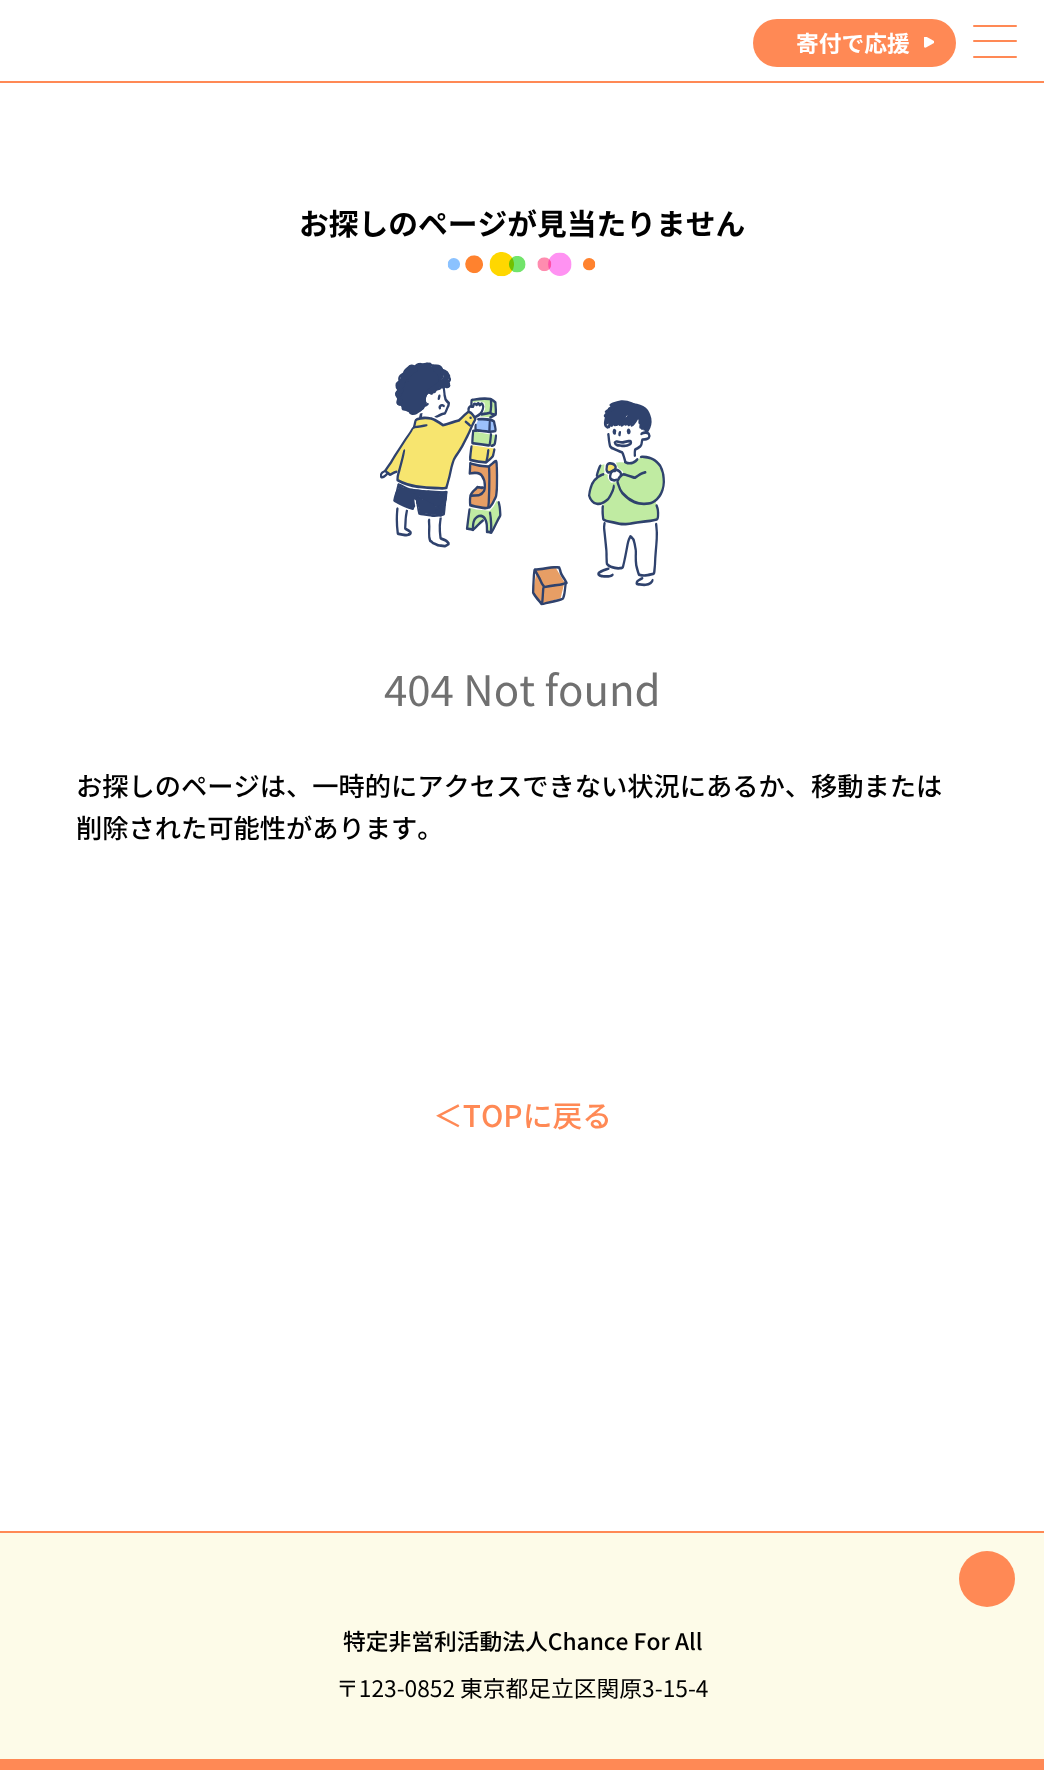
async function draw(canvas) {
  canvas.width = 1044;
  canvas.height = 1770;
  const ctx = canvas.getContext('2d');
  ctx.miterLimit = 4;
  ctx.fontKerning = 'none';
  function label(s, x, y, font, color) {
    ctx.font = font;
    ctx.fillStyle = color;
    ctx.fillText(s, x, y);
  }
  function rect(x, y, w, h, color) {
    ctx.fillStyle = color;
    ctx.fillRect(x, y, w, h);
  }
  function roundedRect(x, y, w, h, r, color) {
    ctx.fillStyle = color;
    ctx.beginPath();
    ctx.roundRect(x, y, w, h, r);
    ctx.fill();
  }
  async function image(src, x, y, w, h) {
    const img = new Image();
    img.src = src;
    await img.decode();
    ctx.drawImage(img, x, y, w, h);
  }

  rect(0, 0, 1044, 1770, '#fff');
  rect(0, 81, 1044, 2, '#ff8955');
  roundedRect(753, 19, 203, 48, 24, '#ff8955');
  label('寄付で応援', 796, 52, 'bold 22.75px Noto Sans JP', '#fff');
  await image('assets/img1.png', 924, 37, 10, 11);
  roundedRect(973, 40, 44, 2, 1, '#ff8955');
  roundedRect(973, 25, 44, 2, 1, '#ff8955');
  roundedRect(973, 56, 44, 2, 1, '#ff8955');
  label('お探しのページが見当たりません', 299, 235, 'bold 29.75px Noto Sans JP', '#000');
  await image('assets/img2.png', 447, 252, 149, 25);
  await image('assets/img3.png', 380, 362, 285, 244);
  label('404 Not found', 384, 706, '42px Noto Sans JP', '#707070');
  label('お探しのページは、一時的にアクセスできない状況にあるか、移動または', 76, 796, '500 26.25px Noto Sans JP', '#000');
  label('削除された可能性があります。', 76, 838, '500 26.25px Noto Sans JP', '#000');
  label('＜TOPに戻る', 433, 1127, '500 29.75px Noto Sans JP', '#ff8955');
  rect(0, 1533, 1044, 226, '#fdfbe8');
  rect(0, 1531, 1044, 2, '#ff8955');
  ctx.beginPath();
  ctx.arc(987, 1579, 28, 0, 2 * Math.PI);
  ctx.fill();
  label('特定非営利活動法人Chance For All', 343, 1650, '500 22.75px Noto Sans JP', '#000');
  label('〒123-0852 東京都足立区関原3-15-4', 336, 1697, '22.75px Noto Sans JP', '#000');
  rect(0, 1759, 1044, 11, '#ff8955');
}

draw(document.querySelector('canvas'));
